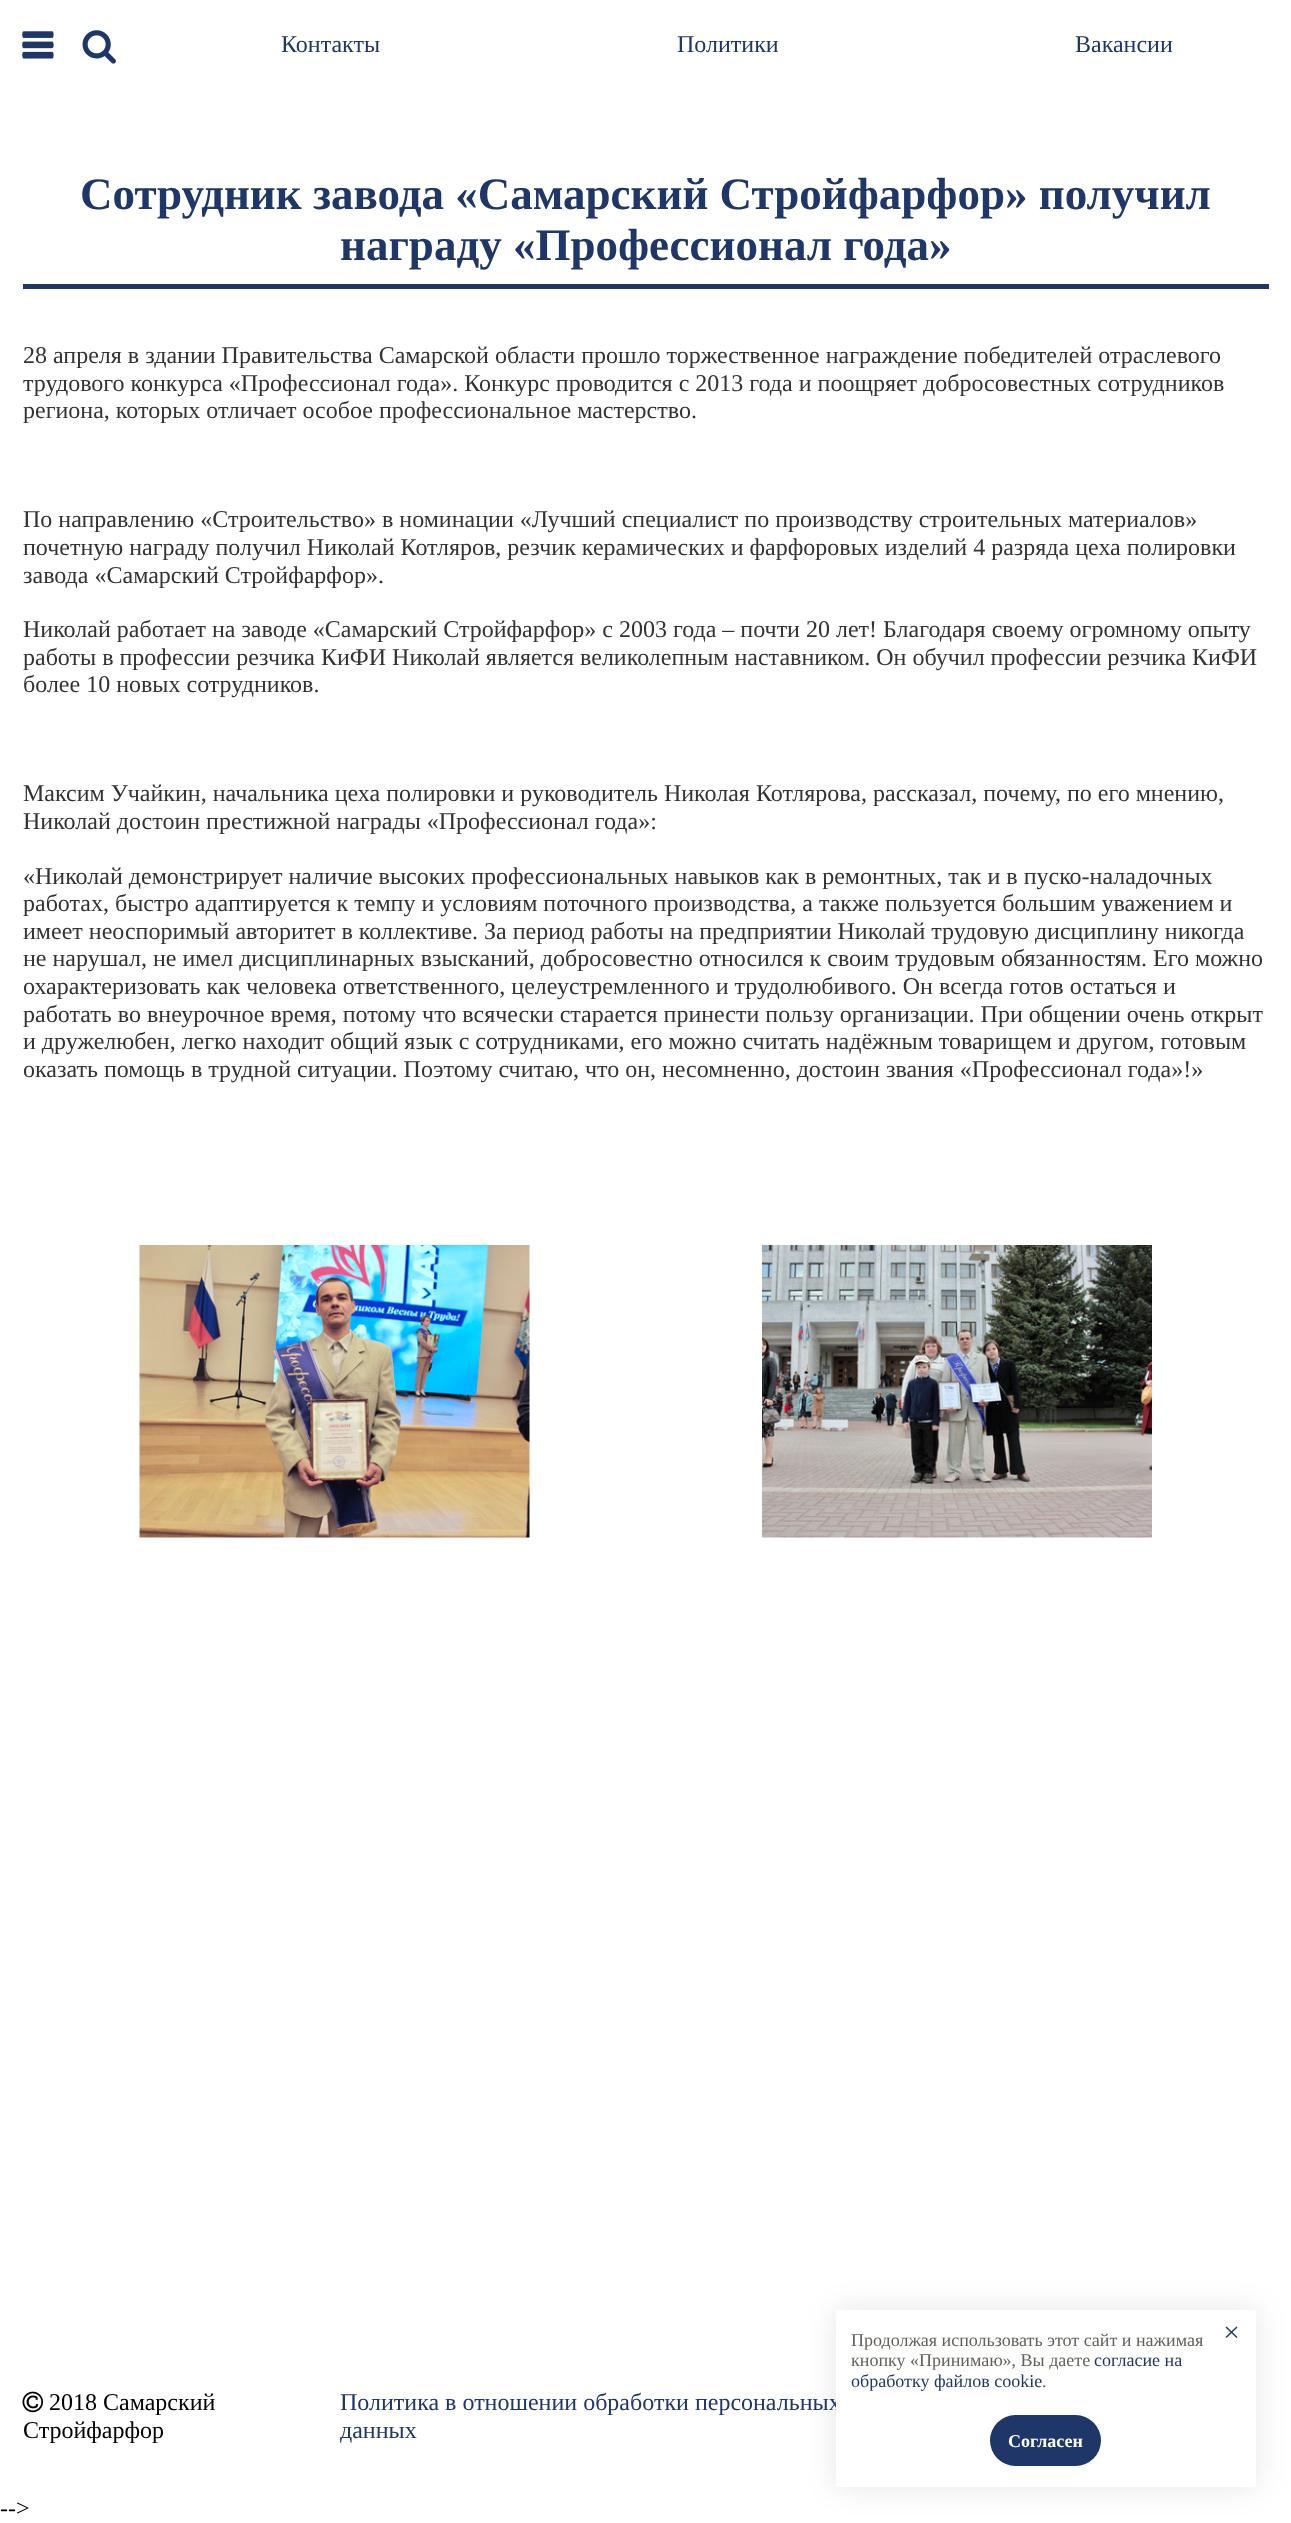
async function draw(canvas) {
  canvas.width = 1291;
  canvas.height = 2523;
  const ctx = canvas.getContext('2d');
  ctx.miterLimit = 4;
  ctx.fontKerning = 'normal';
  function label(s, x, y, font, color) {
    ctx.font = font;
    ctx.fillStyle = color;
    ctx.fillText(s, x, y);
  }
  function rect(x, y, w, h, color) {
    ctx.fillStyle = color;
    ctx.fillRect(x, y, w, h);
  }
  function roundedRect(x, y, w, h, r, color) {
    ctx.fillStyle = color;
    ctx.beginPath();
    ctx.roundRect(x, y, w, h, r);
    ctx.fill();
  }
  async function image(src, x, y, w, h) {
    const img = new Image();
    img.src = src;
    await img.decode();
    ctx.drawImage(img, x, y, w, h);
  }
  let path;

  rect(0, 0, 1291, 2523, '#fff');
  await image('assets/img1.png', 22, 31, 32, 26);
  await image('assets/img2.png', 22, 33, 32, 26);
  await image('assets/img3.png', 82, 30, 34, 34);
  label('Контакты', 281, 52, '24px Liberation Serif', '#1e3668');
  label('Политики', 677, 52, '24px Liberation Serif', '#1e3668');
  label('Вакансии', 1075, 52, '24px Liberation Serif', '#1e3668');
  label('Сотрудник завода «Самарский Стройфарфор» получил', 80, 209, 'bold 45px Liberation Serif', '#1e3668');
  label('награду «Профессионал года»', 340, 260, 'bold 45px Liberation Serif', '#1e3668');
  rect(23, 284, 1246, 5, '#1e3668');
  label('28 апреля в здании Правительства Самарской области прошло торжественное награждение победителей отраслевого', 23, 363, '24px Liberation Serif', '#333');
  label('трудового конкурса «Профессионал года». Конкурс проводится с 2013 года и поощряет добросовестных сотрудников', 23, 391, '24px Liberation Serif', '#333');
  label('региона, которых отличает особое профессиональное мастерство.', 23, 418, '24px Liberation Serif', '#333');
  label('По направлению «Строительство» в номинации «Лучший специалист по производству строительных материалов»', 23, 527, '24px Liberation Serif', '#333');
  label('почетную награду получил Николай Котляров, резчик керамических и фарфоровых изделий 4 разряда цеха полировки', 23, 555, '24px Liberation Serif', '#333');
  label('завода «Самарский Стройфарфор».', 23, 583, '24px Liberation Serif', '#333');
  label('Николай работает на заводе «Самарский Стройфарфор» с 2003 года – почти 20 лет! Благодаря своему огромному опыту', 23, 637, '24px Liberation Serif', '#333');
  label('работы в профессии резчика КиФИ Николай является великолепным наставником. Он обучил профессии резчика КиФИ', 23, 665, '24px Liberation Serif', '#333');
  label('более 10 новых сотрудников.', 23, 692, '24px Liberation Serif', '#333');
  label('Максим Учайкин, начальника цеха полировки и руководитель Николая Котлярова, рассказал, почему, по его мнению,', 23, 801, '24px Liberation Serif', '#333');
  label('Николай достоин престижной награды «Профессионал года»:', 23, 829, '24px Liberation Serif', '#333');
  label('«Николай демонстрирует наличие высоких профессиональных навыков как в ремонтных, так и в пуско-наладочных', 23, 884, '24px Liberation Serif', '#333');
  label('работах, быстро адаптируется к темпу и условиям поточного производства, а также пользуется большим уважением и', 23, 911, '24px Liberation Serif', '#333');
  label('имеет неоспоримый авторитет в коллективе. За период работы на предприятии Николай трудовую дисциплину никогда', 23, 939, '24px Liberation Serif', '#333');
  label('не нарушал, не имел дисциплинарных взысканий, добросовестно относился к своим трудовым обязанностям. Его можно', 23, 966, '24px Liberation Serif', '#333');
  label('охарактеризовать как человека ответственного, целеустремленного и трудолюбивого. Он всегда готов остаться и', 23, 994, '24px Liberation Serif', '#333');
  label('работать во внеурочное время, потому что всячески старается принести пользу организации. При общении очень открыт', 23, 1022, '24px Liberation Serif', '#333');
  label('и дружелюбен, легко находит общий язык с сотрудниками, его можно считать надёжным товарищем и другом, готовым', 23, 1049, '24px Liberation Serif', '#333');
  label('оказать помощь в трудной ситуации. Поэтому считаю, что он, несомненно, достоин звания «Профессионал года»!»', 23, 1077, '24px Liberation Serif', '#333');
  await image('assets/img4.png', 139, 1245, 391, 293);
  await image('assets/img5.png', 762, 1245, 390, 293);
  await image('assets/img6.png', 22, 2391, 22, 22);
  label('2018 Самарский', 49, 2410, '24px Liberation Serif', '#000');
  label('Стройфарфор', 23, 2438, '24px Liberation Serif', '#000');
  label('Политика в отношении обработки персональных', 340, 2410, '24px Liberation Serif', '#1e3668');
  label('данных', 340, 2438, '24px Liberation Serif', '#1e3668');
  ctx.fillStyle = '#0000001a';
  ctx.filter = 'blur(15px)';
  ctx.beginPath();
  ctx.rect(836, 2310, 420, 177);
  ctx.fill();
  ctx.filter = 'none';
  rect(836, 2310, 420, 177, '#fff');
  label('Продолжая использовать этот сайт и нажимая', 851, 2346, '18px Liberation Serif', '#635f59');
  label('кнопку «Принимаю», Вы даете', 851, 2366, '18px Liberation Serif', '#635f59');
  label('согласие на', 1094, 2366, '18px Liberation Serif', '#1e3668');
  label('обработку файлов cookie', 851, 2387, '18px Liberation Serif', '#1e3668');
  label('.', 1042, 2387, '18px Liberation Serif', '#635f59');
  roundedRect(990, 2415, 111, 51, 25.5, '#1e3668');
  label('Согласен', 1008, 2447, 'bold 18px Liberation Serif', '#fff');
  ctx.fillStyle = '#1e3668';
  path = new Path2D('M1226.5 2326.5L1237.5 2337L1236.5 2338L1225.5 2327.5Z');
  ctx.fill(path);
  path = new Path2D('M1225.5 2337L1236.5 2326.5L1237.5 2327.5L1226.5 2338Z');
  ctx.fill(path);
  label('-->', 0, 2516, '24px Liberation Serif', '#000');
}

draw(document.querySelector('canvas'));
